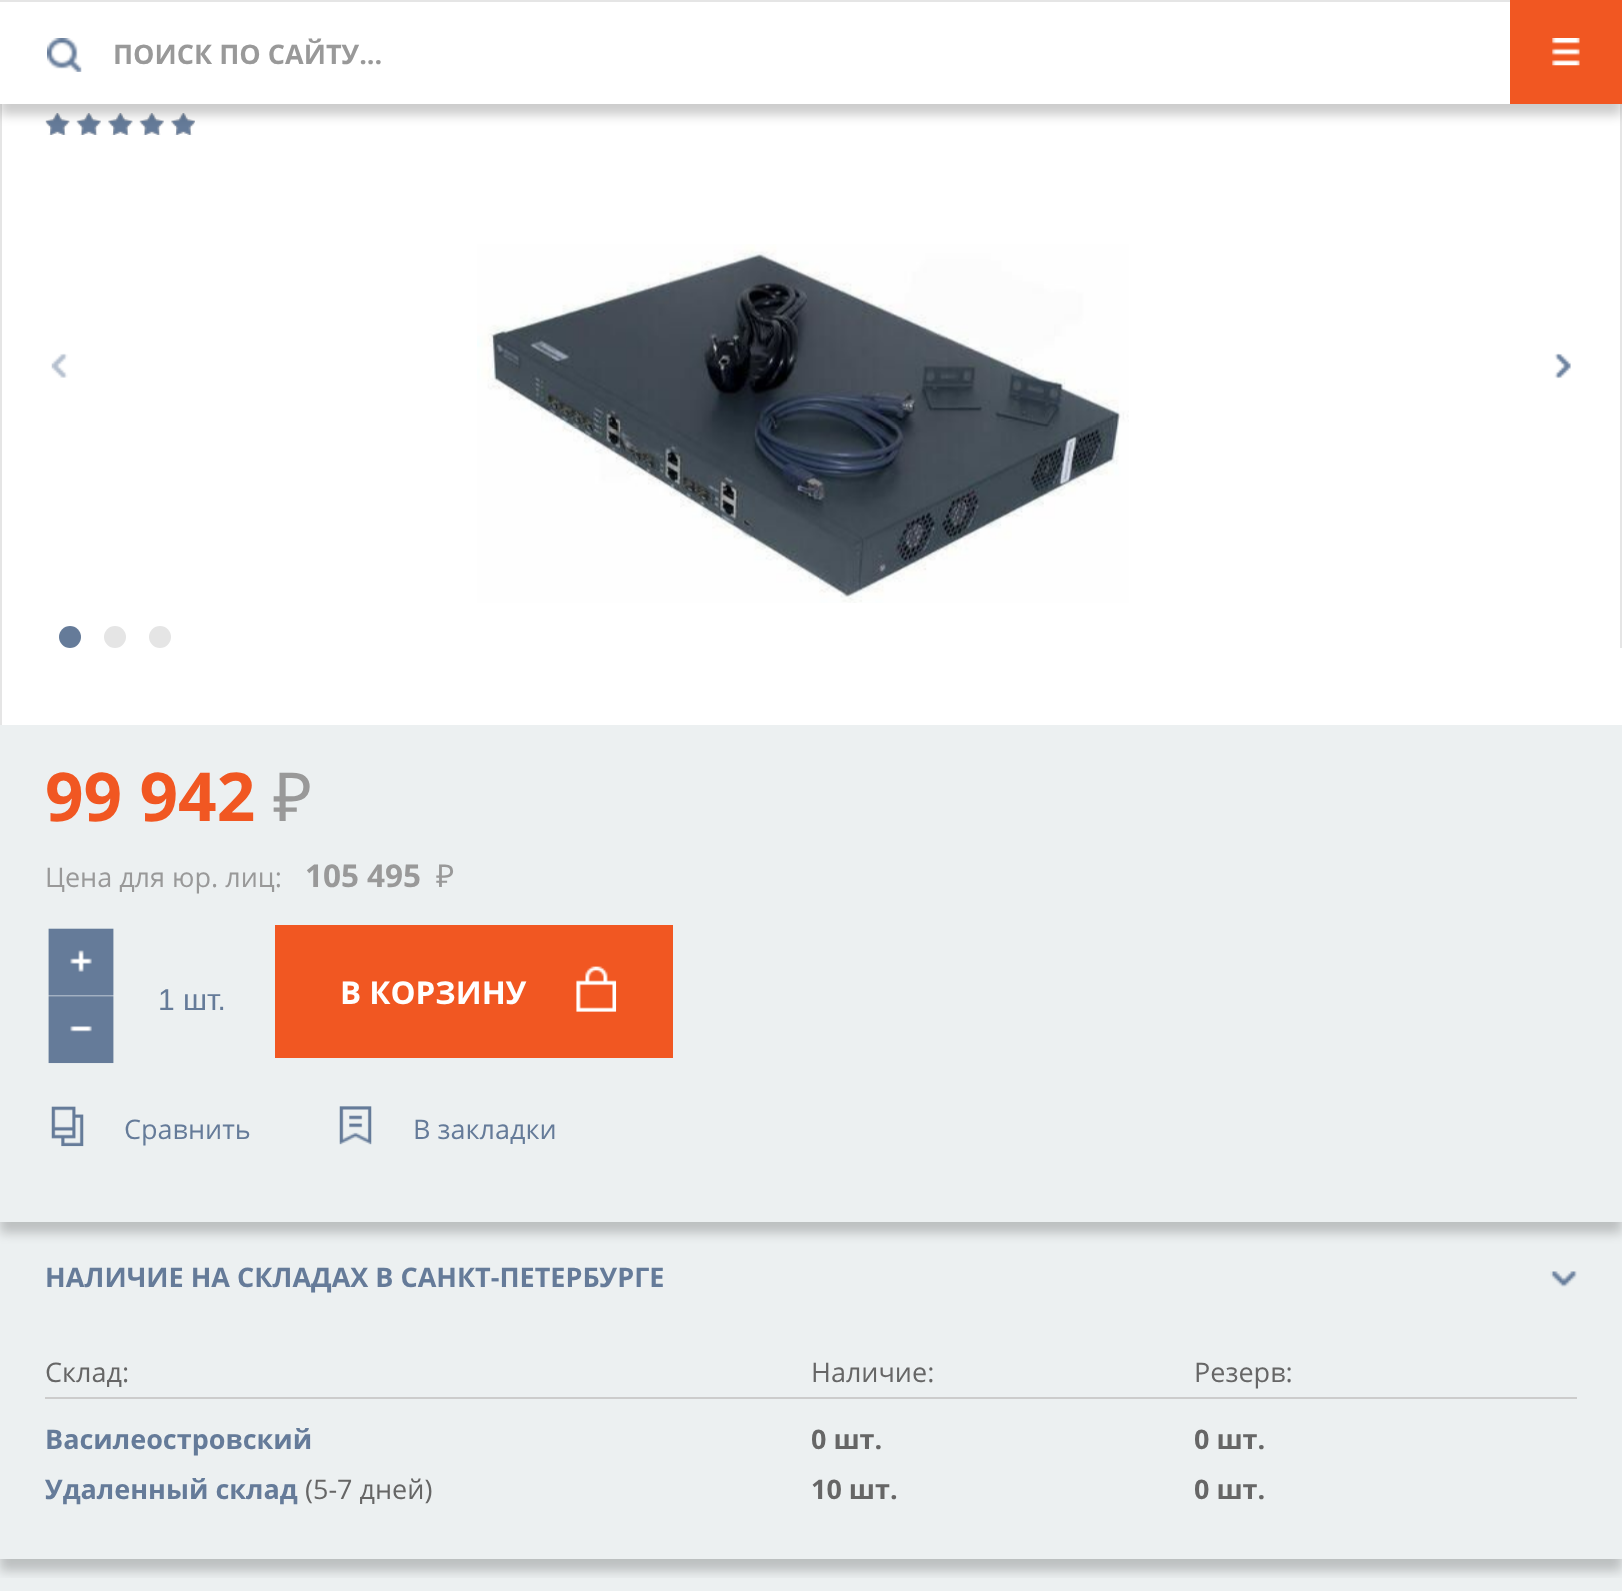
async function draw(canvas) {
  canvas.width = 1622;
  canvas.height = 1591;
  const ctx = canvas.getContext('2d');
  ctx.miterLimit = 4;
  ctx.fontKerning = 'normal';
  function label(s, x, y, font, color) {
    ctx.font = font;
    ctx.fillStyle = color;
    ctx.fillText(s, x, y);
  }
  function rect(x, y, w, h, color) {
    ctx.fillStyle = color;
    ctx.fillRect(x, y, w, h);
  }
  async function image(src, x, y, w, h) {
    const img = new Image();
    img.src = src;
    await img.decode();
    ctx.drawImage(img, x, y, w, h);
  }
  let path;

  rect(0, 0, 1622, 1591, '#fff');
  rect(0, 104, 2, 621, '#e5e5e5');
  rect(1620, 104, 2, 544, '#e5e5e5');
  await image('assets/img6.png', 45, 113, 150, 22);
  await image('assets/img7.png', 45, 113, 150, 22);
  ctx.fillStyle = '#00000033';
  ctx.filter = 'blur(5.5px)';
  ctx.beginPath();
  ctx.rect(0, 11, 1622, 104);
  ctx.fill();
  ctx.filter = 'none';
  rect(0, 2, 1510, 102, '#fff');
  await image('assets/img1.png', 47, 38, 35, 34);
  rect(0, 0, 1510, 2, '#e5e5e5');
  label('ПОИСК ПО САЙТУ...', 113, 64, 'bold 27px Open Sans', '#999');
  rect(1510, 0, 112, 104, '#f15722');
  await image('assets/img2.png', 1552, 38, 28, 28);
  await image('assets/img3.png', 477, 244, 652, 359);
  await image('assets/img4.png', 51, 353, 17, 25);
  await image('assets/img5.png', 1554, 353, 17, 26);
  ctx.fillStyle = '#657b99';
  ctx.beginPath();
  ctx.arc(70, 637, 11, 0, 2 * Math.PI);
  ctx.fill();
  ctx.fillStyle = '#e5e5e5';
  ctx.beginPath();
  ctx.arc(115, 637, 11, 0, 2 * Math.PI);
  ctx.fill();
  ctx.beginPath();
  ctx.arc(160, 637, 11, 0, 2 * Math.PI);
  ctx.fill();
  rect(0, 725, 1622, 866, '#ecf0f1');
  label('99 942', 45, 821, 'bold 67.5px Open Sans', '#f15722');
  label('₽', 273, 821, '67.5px Noto Sans', '#999');
  label('Цена для юр. лиц:', 45, 887, '27px Open Sans', '#999');
  label('105 495', 305, 887, 'bold 31.5px Open Sans', '#999');
  label('₽', 436, 887, '31.5px Noto Sans', '#999');
  ctx.save();
  path = new Path2D('M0 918H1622V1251H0ZM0 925H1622V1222H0Z');
  ctx.clip(path, 'evenodd');
  ctx.fillStyle = '#00000033';
  ctx.filter = 'blur(5.5px)';
  ctx.beginPath();
  ctx.rect(0, 936, 1622, 297);
  ctx.fill();
  ctx.filter = 'none';
  ctx.restore();
  await image('assets/img8.png', 48, 928, 66, 68);
  await image('assets/img9.png', 48, 996, 66, 68);
  label('1 шт.', 158, 1010, '30px Liberation Sans', '#657b99');
  rect(275, 925, 398, 133, '#f15722');
  label('В КОРЗИНУ', 340, 1004, 'bold 31.5px Open Sans', '#fff');
  await image('assets/img10.png', 576, 966, 41, 46);
  await image('assets/img11.png', 51, 1106, 33, 41);
  label('Сравнить', 124, 1139, '27px Open Sans', '#657b99');
  await image('assets/img12.png', 339, 1106, 33, 39);
  label('В закладки', 413, 1139, '27px Open Sans', '#657b99');
  label('НАЛИЧИЕ НА СКЛАДАХ В САНКТ-ПЕТЕРБУРГЕ', 45, 1287, 'bold 27px Open Sans', '#657b99');
  await image('assets/img13.png', 1550, 1271, 27, 16);
  ctx.save();
  ctx.beginPath();
  ctx.rect(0, 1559, 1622, 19);
  ctx.clip();
  ctx.fillStyle = '#00000033';
  ctx.filter = 'blur(5.5px)';
  ctx.beginPath();
  ctx.rect(0, 1314, 1622, 257);
  ctx.fill();
  ctx.filter = 'none';
  ctx.restore();
  rect(45, 1397, 1532, 2, '#ccc');
  label('Склад:', 45, 1382, '27px Open Sans', '#666');
  label('Наличие:', 811, 1382, '27px Open Sans', '#666');
  label('Резерв:', 1194, 1382, '27px Open Sans', '#666');
  label('Василеостровский', 45, 1449, 'bold 27px Open Sans', '#657b99');
  label('0 шт.', 811, 1449, 'bold 27px Open Sans', '#666');
  label('0 шт.', 1194, 1449, 'bold 27px Open Sans', '#666');
  label('Удаленный склад', 45, 1499, 'bold 27px Open Sans', '#657b99');
  label('(5-7 дней)', 305, 1499, '27px Open Sans', '#666');
  label('10 шт.', 811, 1499, 'bold 27px Open Sans', '#666');
  label('0 шт.', 1194, 1499, 'bold 27px Open Sans', '#666');
}

draw(document.querySelector('canvas'));
